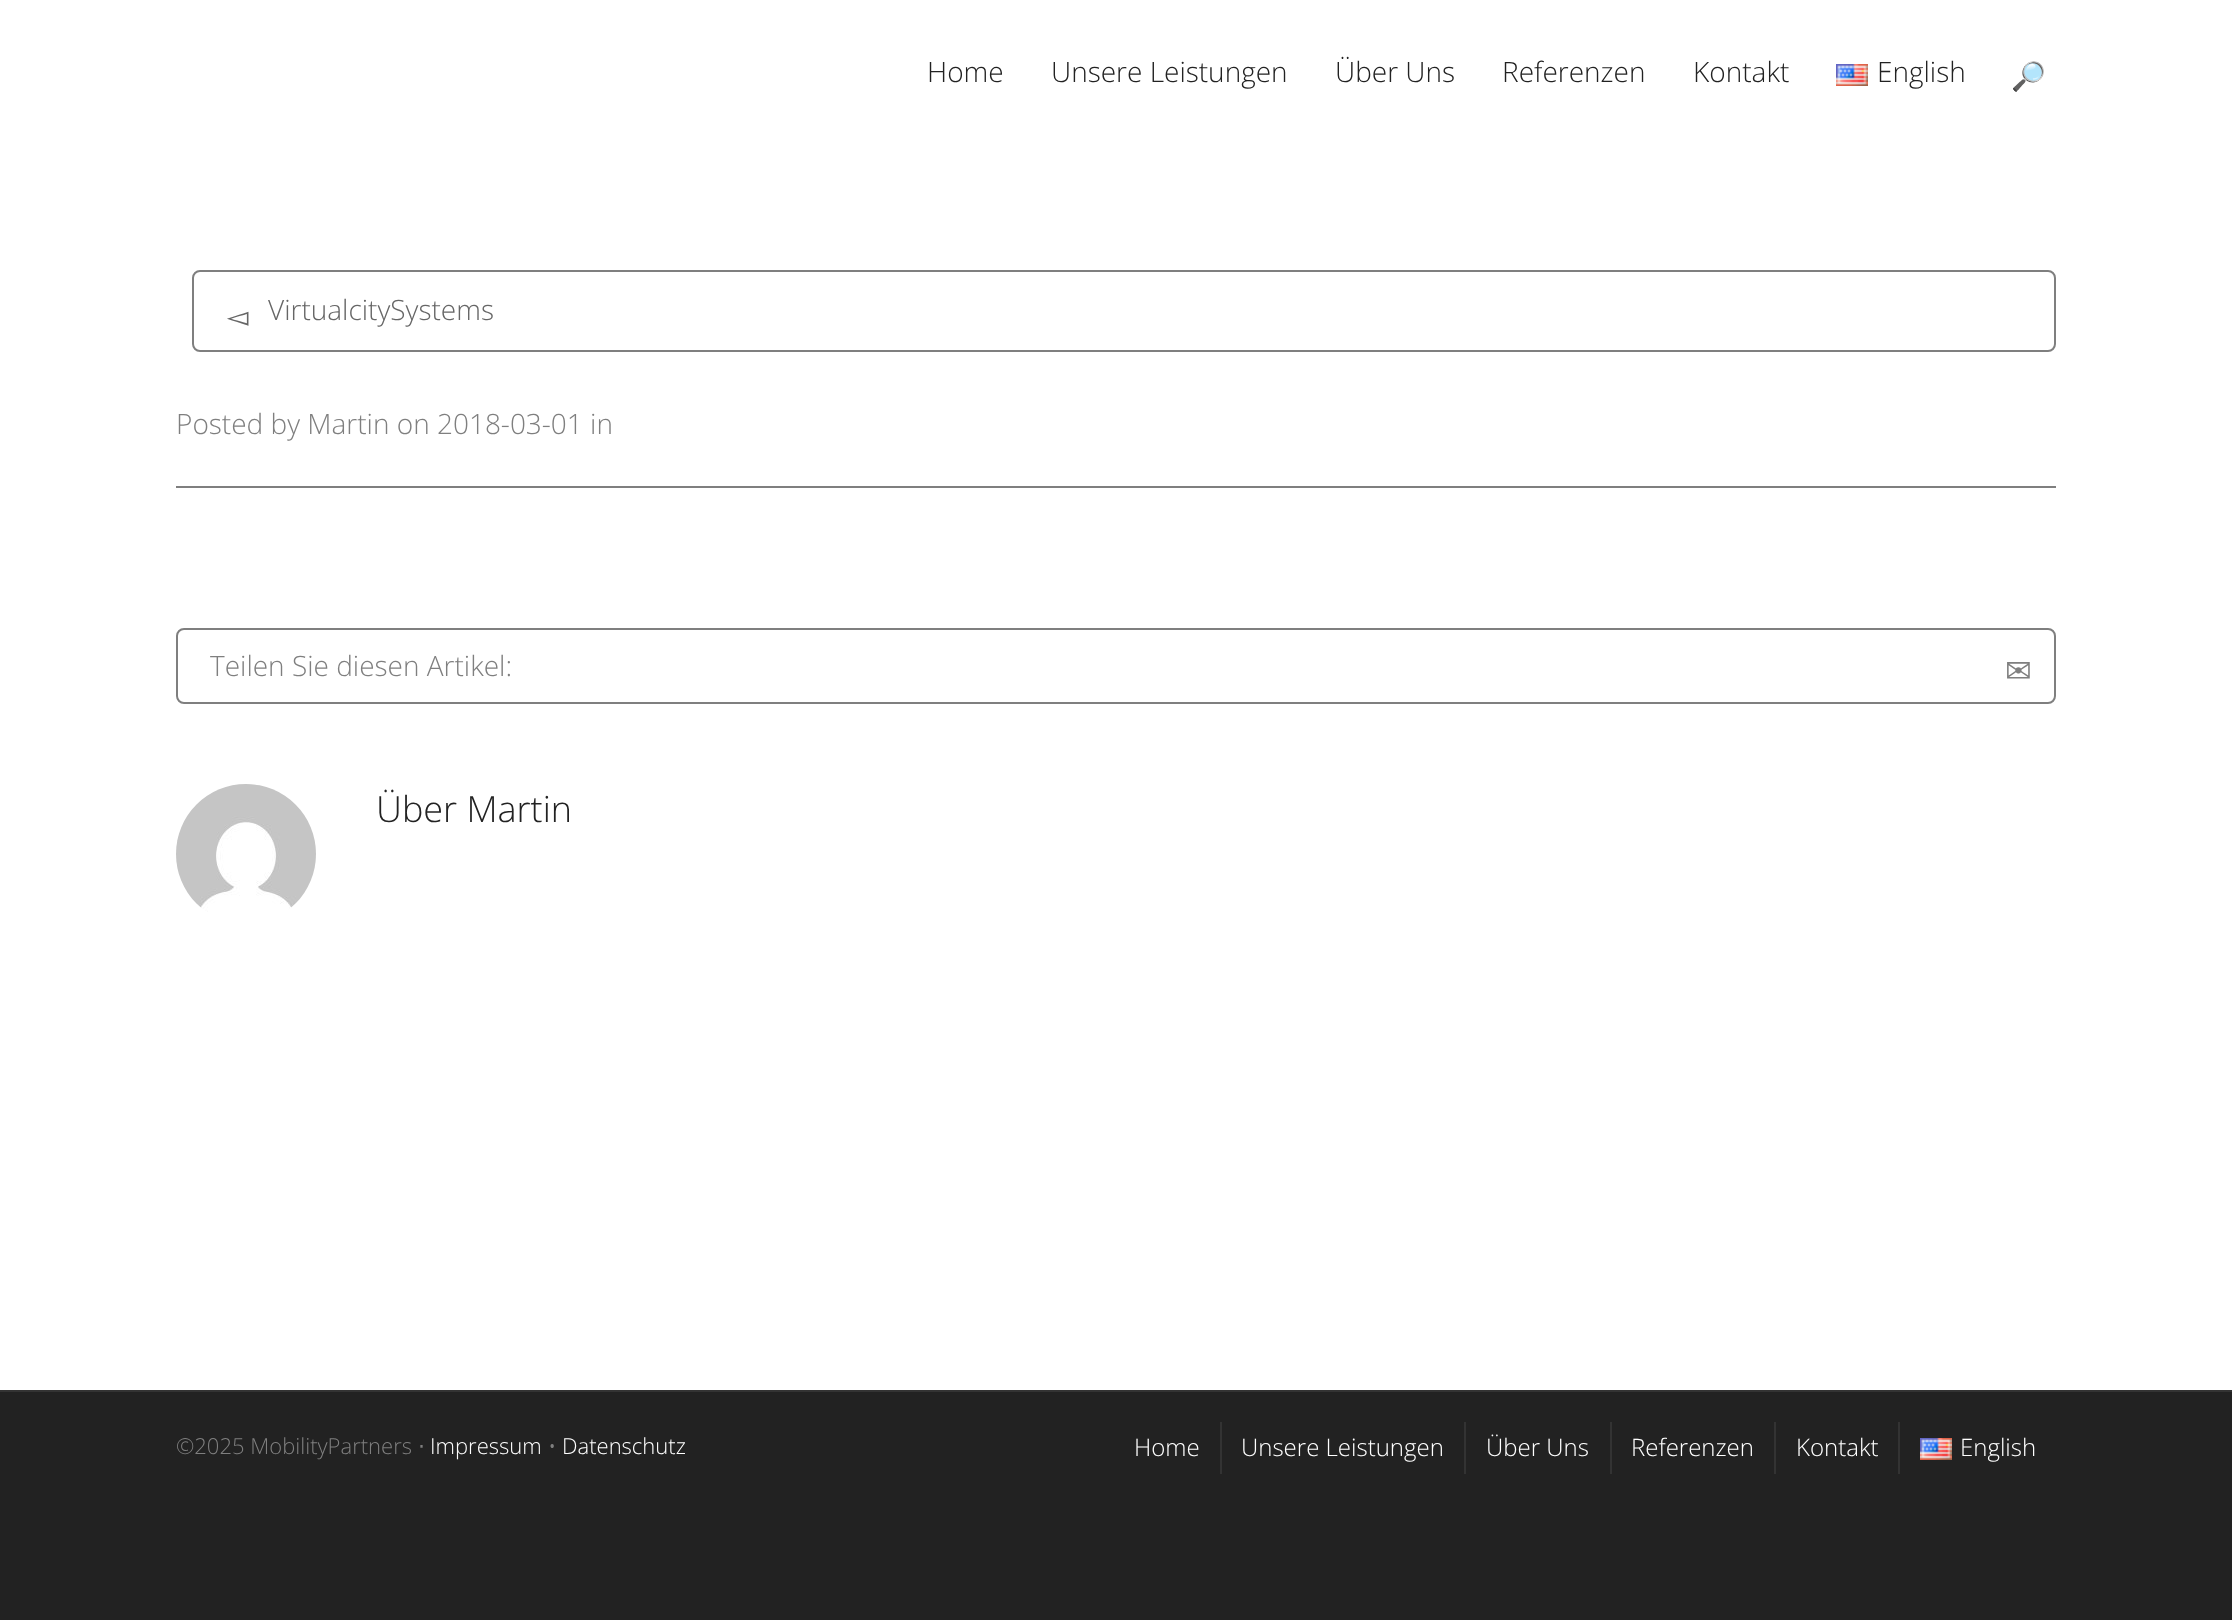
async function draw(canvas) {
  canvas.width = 2232;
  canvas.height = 1620;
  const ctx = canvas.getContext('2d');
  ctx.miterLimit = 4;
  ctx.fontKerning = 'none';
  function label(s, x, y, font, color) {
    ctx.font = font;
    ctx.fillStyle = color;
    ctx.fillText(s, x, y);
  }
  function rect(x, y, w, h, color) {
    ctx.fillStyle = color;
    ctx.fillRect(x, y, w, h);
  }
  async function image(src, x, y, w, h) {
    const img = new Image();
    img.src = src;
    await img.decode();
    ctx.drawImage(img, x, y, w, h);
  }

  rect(0, 0, 2232, 1620, '#222');
  rect(0, 0, 2232, 1390, '#fff');
  label('Home', 927, 82, '300 28px Open Sans', '#222');
  label('Unsere Leistungen', 1051, 82, '300 28px Open Sans', '#222');
  label('Über Uns', 1335, 82, '300 28px Open Sans', '#222');
  label('Referenzen', 1502, 82, '300 28px Open Sans', '#222');
  label('Kontakt', 1693, 82, '300 28px Open Sans', '#222');
  await image('assets/img1.png', 1836, 64, 32, 22);
  label('English', 1877, 82, '300 28px Open Sans', '#222');
  label('🔎', 2011, 86, '28px Noto Color Emoji', '#222');
  ctx.beginPath();
  ctx.roundRect(193, 271, 1862, 80, 7);
  ctx.strokeStyle = '#7f7f7f';
  ctx.lineWidth = 2;
  ctx.stroke();
  label('◅', 227, 326, '28px DejaVu Sans', '#666');
  label('VirtualcitySystems', 268, 320, '300 28px Open Sans', '#666');
  rect(176, 486, 1880, 2, '#7f7f7f');
  label('Posted by Martin on 2018-03-01 in', 176, 434, '300 28px Open Sans', '#7f7f7f');
  ctx.beginPath();
  ctx.roundRect(177, 629, 1878, 74, 7);
  ctx.stroke();
  label('Teilen Sie diesen Artikel:', 210, 676, '300 28px Open Sans', '#7f7f7f');
  label('✉', 2005, 682, '32px DejaVu Sans', '#7f7f7f');
  await image('assets/img2.png', 176, 784, 140, 128);
  label('Über Martin', 376, 822, '300 36px Open Sans', '#222');
  rect(0, 1390, 2232, 2, '#333');
  label('©2025 MobilityPartners', 176, 1454, '300 22px Open Sans', '#7f7f7f');
  label('⋅', 418, 1454, '22px DejaVu Sans', '#7f7f7f');
  label('Impressum', 430, 1454, '300 22px Open Sans', '#fff');
  label('•', 548, 1454, '300 22px Open Sans', '#7f7f7f');
  label('Datenschutz', 562, 1454, '300 22px Open Sans', '#fff');
  label('Home', 1134, 1456, '300 24px Open Sans', '#fff');
  rect(1220, 1422, 2, 52, '#333');
  label('Unsere Leistungen', 1241, 1456, '300 24px Open Sans', '#fff');
  rect(1464, 1422, 2, 52, '#333');
  label('Über Uns', 1486, 1456, '300 24px Open Sans', '#fff');
  rect(1610, 1422, 2, 52, '#333');
  label('Referenzen', 1631, 1456, '300 24px Open Sans', '#fff');
  rect(1774, 1422, 2, 52, '#333');
  label('Kontakt', 1796, 1456, '300 24px Open Sans', '#fff');
  rect(1898, 1422, 2, 52, '#333');
  await image('assets/img1.png', 1920, 1438, 32, 22);
  label('English', 1960, 1456, '300 24px Open Sans', '#fff');
}

draw(document.querySelector('canvas'));
